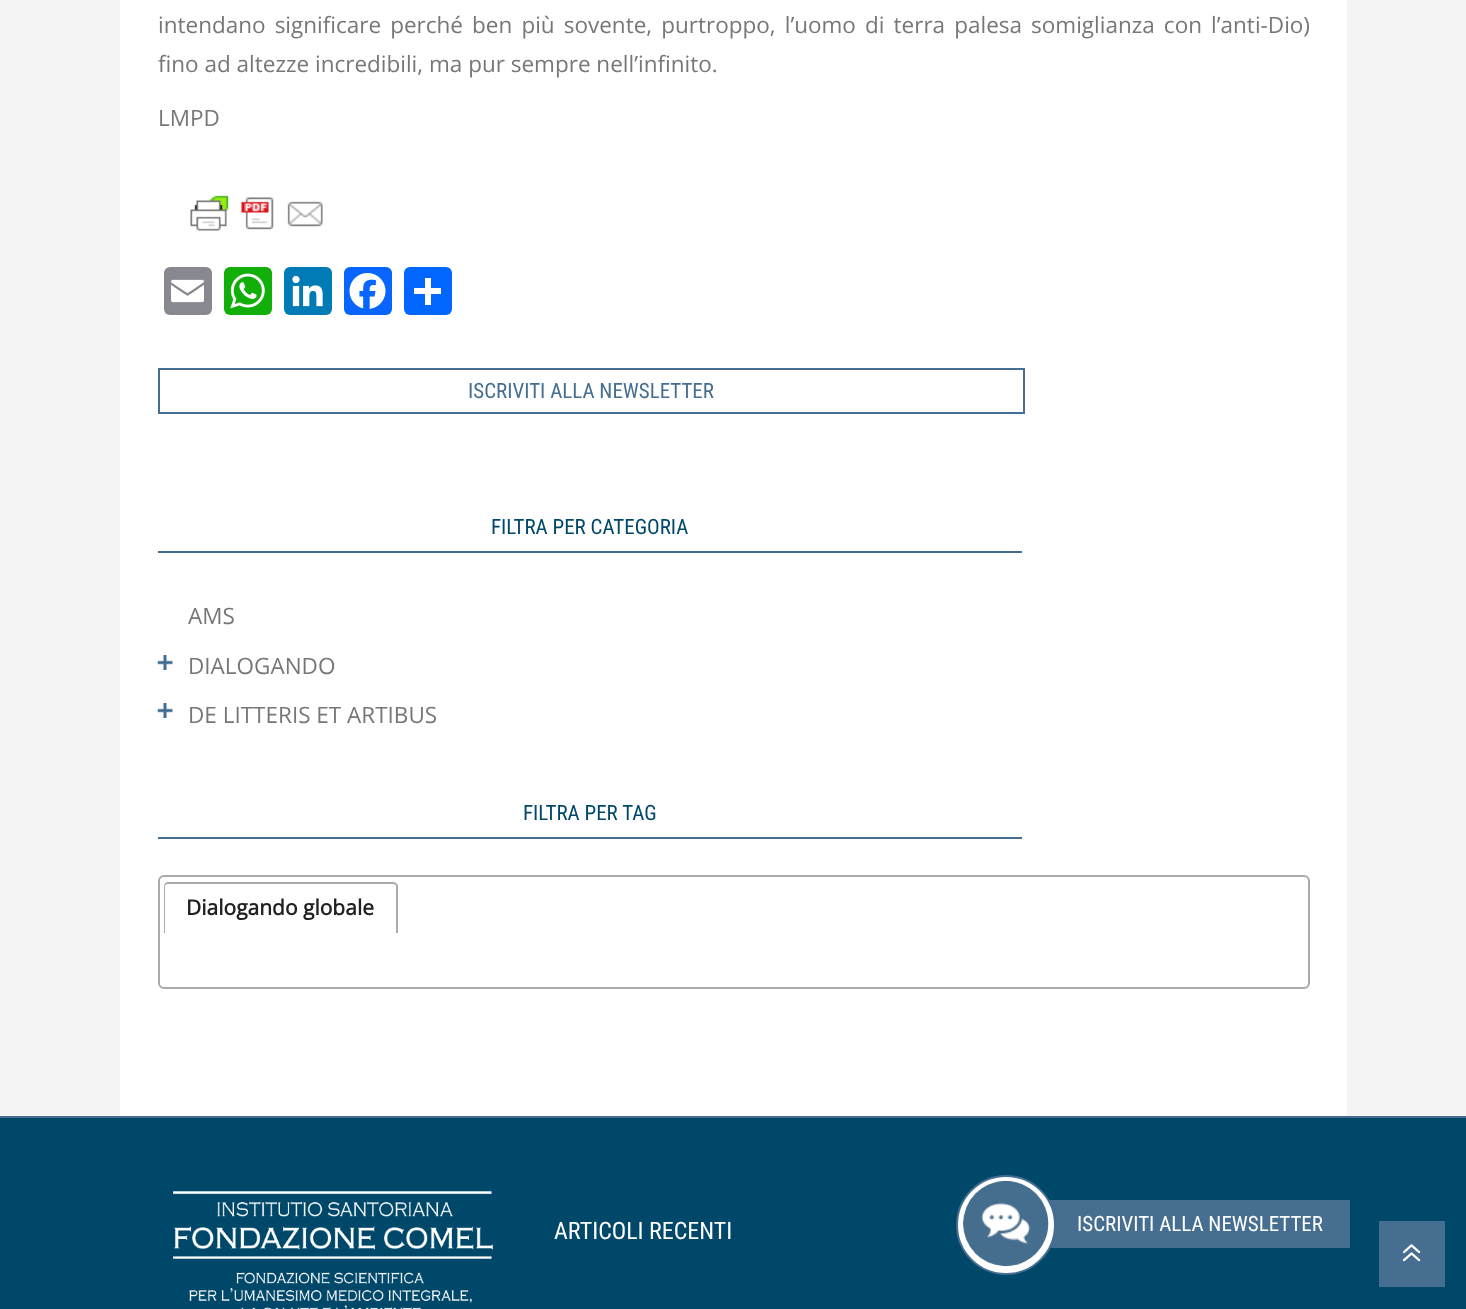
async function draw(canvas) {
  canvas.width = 1466;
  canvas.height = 1309;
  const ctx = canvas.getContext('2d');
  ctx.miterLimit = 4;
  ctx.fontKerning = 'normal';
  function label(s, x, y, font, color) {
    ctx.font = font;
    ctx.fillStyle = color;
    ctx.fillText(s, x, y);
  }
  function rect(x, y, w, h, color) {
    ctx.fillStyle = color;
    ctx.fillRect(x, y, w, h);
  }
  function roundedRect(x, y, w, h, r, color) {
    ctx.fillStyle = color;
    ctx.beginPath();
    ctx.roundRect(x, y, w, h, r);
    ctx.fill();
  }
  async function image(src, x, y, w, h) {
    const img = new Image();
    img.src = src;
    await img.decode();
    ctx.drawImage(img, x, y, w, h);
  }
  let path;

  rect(0, 0, 1466, 1309, '#f4f4f4');
  rect(120, 0, 1227, 1116, '#fff');
  ctx.wordSpacing = '3.25px';
  label('intendano significare perché ben più sovente, purtroppo, l’uomo di terra palesa somiglianza con l’anti-Dio)', 158, 33, '22.5px Open Sans', '#777');
  ctx.wordSpacing = '0px';
  label('fino ad altezze incredibili, ma pur sempre nell’infinito.', 158, 72, '22.5px Open Sans', '#777');
  label('LMPD', 158, 126, '22.5px Open Sans', '#777');
  await image('assets/img1.png', 190, 195, 133, 36);
  roundedRect(164, 267, 48, 48, 6, '#888990');
  await image('assets/img2.png', 171, 279, 33, 24);
  roundedRect(224, 267, 48, 48, 6, '#12af0a');
  await image('assets/img3.png', 230, 273, 35, 36);
  roundedRect(284, 267, 48, 48, 6, '#007bb5');
  await image('assets/img4.png', 292, 275, 31, 32);
  roundedRect(344, 267, 48, 48, 6, '#0866ff');
  await image('assets/img5.png', 349, 273, 37, 36);
  roundedRect(404, 267, 48, 48, 6, '#0166ff');
  rect(425, 278, 6, 27, '#fff');
  rect(414, 288, 27, 6, '#fff');
  ctx.strokeStyle = '#456e90';
  ctx.lineWidth = 2;
  ctx.strokeRect(159, 369, 865, 44);
  label('ISCRIVITI ALLA NEWSLETTER', 468, 398, '21px Roboto Condensed', '#456e90');
  rect(158, 551, 864, 2, '#456e90');
  label('FILTRA PER CATEGORIA', 491, 534, '21px Roboto Condensed', '#00486a');
  label('AMS', 188, 624, '22.5px Open Sans', '#777');
  await image('assets/img6.png', 157, 655, 16, 15);
  label('DIALOGANDO', 188, 674, '22.5px Open Sans', '#777');
  await image('assets/img6.png', 157, 703, 16, 15);
  label('DE LITTERIS ET ARTIBUS', 188, 723, '22.5px Open Sans', '#777');
  rect(158, 837, 864, 2, '#456e90');
  label('FILTRA PER TAG', 523, 820, '21px Roboto Condensed', '#00486a');
  ctx.beginPath();
  ctx.roundRect(159, 876, 1150, 112, 5);
  ctx.strokeStyle = '#aaa';
  ctx.stroke();
  ctx.fillStyle = '#aaa';
  path = new Path2D('M168 882H393C395 882 398 884 398 886V933H164V886C164 884 166 882 168 882ZM168 884H393C395 884 396 885 396 886V933H165V886C165 885 166 884 168 884Z');
  ctx.fill(path, 'evenodd');
  label('Dialogando globale', 186, 915, 'bold 21px Open Sans', '#212121');
  rect(0, 1116, 1466, 2, '#456e90');
  rect(0, 1118, 1466, 191, '#00486a');
  await image('assets/img7.png', 173, 1191, 320, 118);
  label('ARTICOLI RECENTI', 554, 1239, '24px Roboto Condensed', '#fff');
  rect(1049, 1200, 301, 48, '#456e90');
  ctx.fillStyle = '#fff';
  ctx.beginPath();
  ctx.arc(1006, 1225, 49, 0, 2 * Math.PI);
  ctx.fill();
  ctx.strokeStyle = '#456e90';
  ctx.stroke();
  await image('assets/img8.png', 963, 1180, 86, 87);
  label('ISCRIVITI ALLA NEWSLETTER', 1077, 1231, '21px Roboto Condensed', '#fff');
  rect(1379, 1221, 66, 66, '#456e90');
  await image('assets/img9.png', 1402, 1244, 19, 18);
}

draw(document.querySelector('canvas'));
